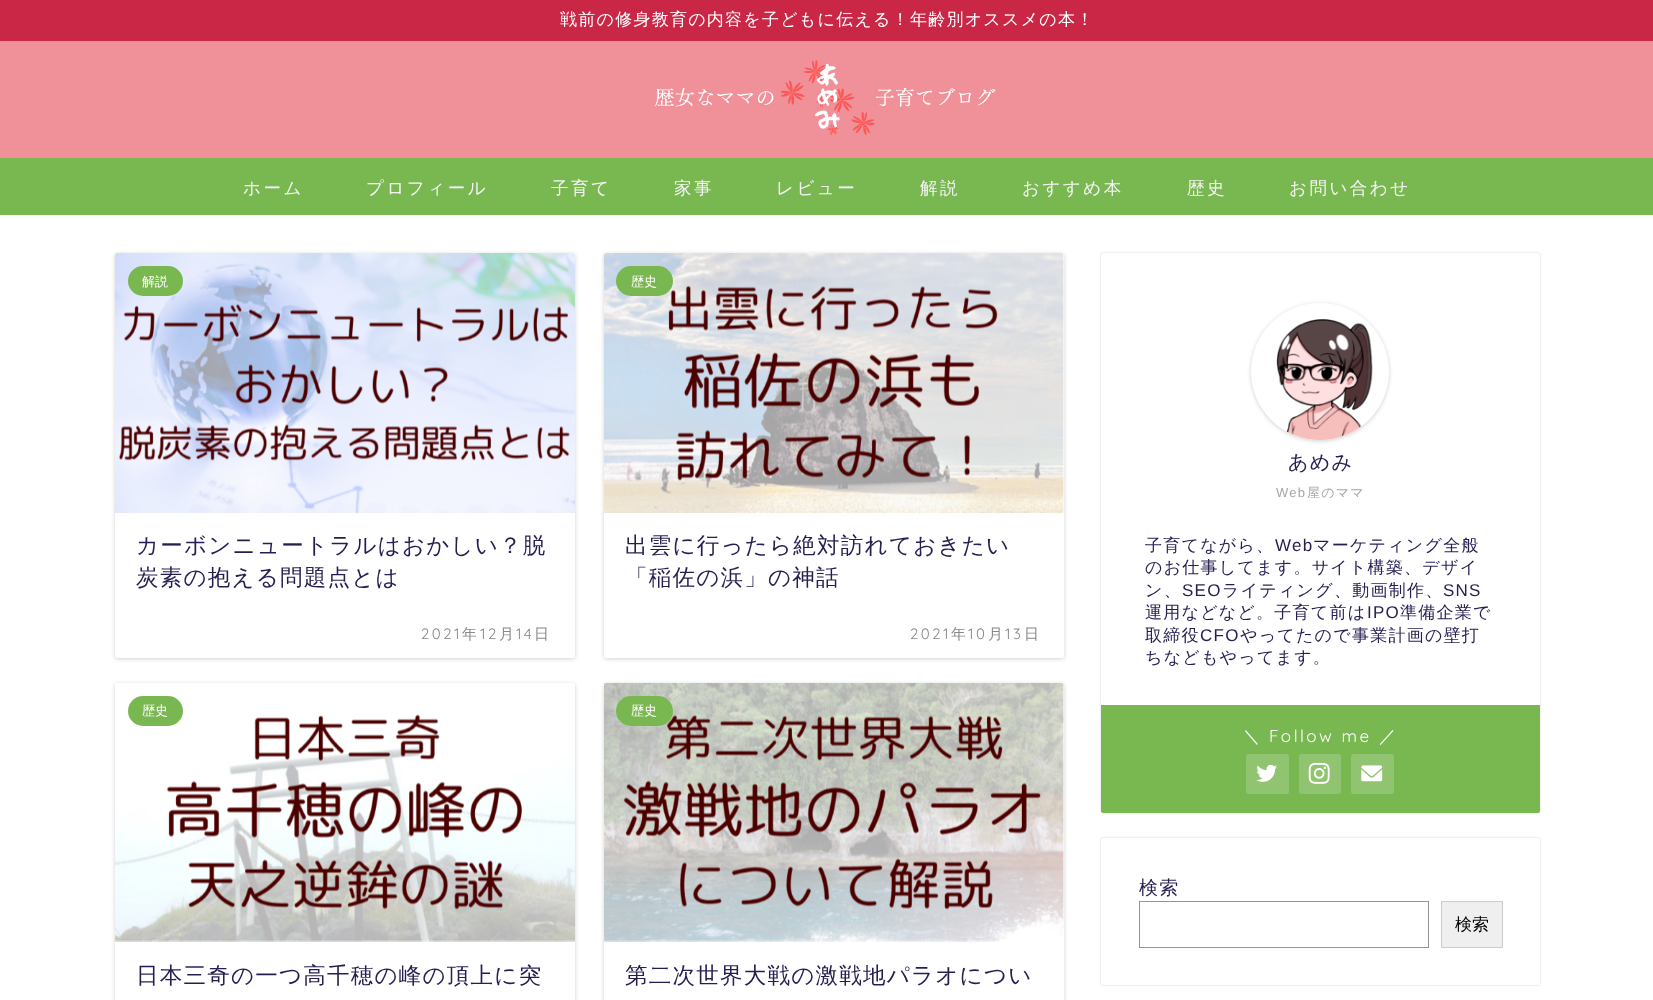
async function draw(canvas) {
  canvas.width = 1653;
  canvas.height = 1000;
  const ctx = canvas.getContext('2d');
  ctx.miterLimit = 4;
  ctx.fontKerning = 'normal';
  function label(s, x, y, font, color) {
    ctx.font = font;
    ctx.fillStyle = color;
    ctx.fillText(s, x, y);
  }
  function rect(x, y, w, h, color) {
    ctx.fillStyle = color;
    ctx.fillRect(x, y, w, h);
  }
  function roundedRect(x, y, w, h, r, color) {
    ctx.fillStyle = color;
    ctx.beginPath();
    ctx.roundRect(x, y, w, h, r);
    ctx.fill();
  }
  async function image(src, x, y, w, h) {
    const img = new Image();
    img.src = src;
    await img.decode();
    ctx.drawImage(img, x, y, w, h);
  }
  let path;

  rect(0, 0, 1653, 1000, '#fff');
  rect(0, 0, 1653, 41, '#ca2747');
  ctx.letterSpacing = '1.25px';
  label('戦前の修身教育の内容を子どもに伝える！年齢別オススメの本！', 560, 25, '500 17px WenQuanYi Zen Hei', '#fff');
  rect(0, 41, 1653, 117, '#f09199');
  await image('assets/img1.png', 655, 60, 341, 75);
  rect(0, 158, 1653, 57, '#79b751');
  ctx.letterSpacing = '2.5px';
  label('ホーム', 243, 194, '500 17.5px WenQuanYi Zen Hei', '#f4f4f4');
  label('プロフィール', 366, 194, '500 17.5px WenQuanYi Zen Hei', '#f4f4f4');
  label('子育て', 551, 194, '500 17.5px WenQuanYi Zen Hei', '#f4f4f4');
  label('家事', 674, 194, '500 17.5px WenQuanYi Zen Hei', '#f4f4f4');
  label('レビュー', 776, 194, '500 17.5px WenQuanYi Zen Hei', '#f4f4f4');
  label('解説', 920, 194, '500 17.5px WenQuanYi Zen Hei', '#f4f4f4');
  label('おすすめ本', 1022, 194, '500 17.5px WenQuanYi Zen Hei', '#f4f4f4');
  label('歴史', 1187, 194, '500 17.5px WenQuanYi Zen Hei', '#f4f4f4');
  label('お問い合わせ', 1289, 194, '500 17.5px WenQuanYi Zen Hei', '#f4f4f4');
  ctx.fillStyle = '#0000002e';
  ctx.filter = 'blur(2px)';
  ctx.beginPath();
  ctx.roundRect(115, 254, 460, 405, 2.5);
  ctx.fill();
  ctx.filter = 'none';
  roundedRect(115, 253, 460, 405, 2.5, '#fff');
  await image('assets/img2.png', 115, 253, 460, 260);
  roundedRect(128, 266, 55, 30, 15, '#79b751');
  ctx.letterSpacing = '0px';
  label('解説', 142, 286, '500 13px WenQuanYi Zen Hei', '#fff');
  ctx.letterSpacing = '1.25px';
  label('カーボンニュートラルはおかしい？脱', 136, 553, '500 22.5px WenQuanYi Zen Hei', '#261d51');
  label('炭素の抱える問題点とは', 136, 585, '500 22.5px WenQuanYi Zen Hei', '#261d51');
  ctx.letterSpacing = '2.5px';
  label('2021', 421, 639, '300 15px Quicksand', '#888');
  label('年', 462, 639, '500 15px WenQuanYi Zen Hei', '#888');
  label('12', 480, 639, '300 15px Quicksand', '#888');
  label('月', 499, 639, '500 15px WenQuanYi Zen Hei', '#888');
  label('14', 516, 639, '300 15px Quicksand', '#888');
  label('日', 534, 639, '500 15px WenQuanYi Zen Hei', '#888');
  ctx.fillStyle = '#0000002e';
  ctx.filter = 'blur(2px)';
  ctx.beginPath();
  ctx.roundRect(604, 254, 460, 405, 2.5);
  ctx.fill();
  ctx.filter = 'none';
  roundedRect(604, 253, 460, 405, 2.5, '#fff');
  await image('assets/img3.png', 604, 253, 460, 260);
  roundedRect(616, 266, 57, 30, 15, '#79b751');
  ctx.letterSpacing = '0px';
  label('歴史', 631, 286, '500 13px WenQuanYi Zen Hei', '#fff');
  ctx.letterSpacing = '1.25px';
  label('出雲に行ったら絶対訪れておきたい', 625, 553, '500 22.5px WenQuanYi Zen Hei', '#261d51');
  label('「稲佐の浜」の神話', 625, 585, '500 22.5px WenQuanYi Zen Hei', '#261d51');
  ctx.letterSpacing = '2.5px';
  label('2021', 910, 639, '300 15px Quicksand', '#888');
  label('年', 951, 639, '500 15px WenQuanYi Zen Hei', '#888');
  label('10', 968, 639, '300 15px Quicksand', '#888');
  label('月', 988, 639, '500 15px WenQuanYi Zen Hei', '#888');
  label('13', 1005, 639, '300 15px Quicksand', '#888');
  label('日', 1024, 639, '500 15px WenQuanYi Zen Hei', '#888');
  ctx.save();
  path = new Path2D('M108 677H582V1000H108ZM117.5 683H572.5C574 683 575 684 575 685.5V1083.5C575 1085 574 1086 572.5 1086H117.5C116 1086 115 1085 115 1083.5V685.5C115 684 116 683 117.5 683Z');
  ctx.clip(path, 'evenodd');
  ctx.fillStyle = '#0000002e';
  ctx.filter = 'blur(2px)';
  ctx.beginPath();
  ctx.roundRect(115, 684, 460, 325, 2.5);
  ctx.fill();
  ctx.filter = 'none';
  ctx.restore();
  await image('assets/img4.png', 115, 714, 460, 228);
  roundedRect(128, 696, 55, 30, 15, '#79b751');
  ctx.letterSpacing = '0px';
  label('歴史', 142, 715, '500 13px WenQuanYi Zen Hei', '#fff');
  ctx.letterSpacing = '1.25px';
  label('日本三奇の一つ高千穂の峰の頂上に突', 136, 983, '500 22.5px WenQuanYi Zen Hei', '#261d51');
  ctx.fillStyle = '#0000002e';
  ctx.filter = 'blur(2px)';
  ctx.beginPath();
  ctx.roundRect(604, 684, 460, 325, 2.5);
  ctx.fill();
  ctx.filter = 'none';
  roundedRect(604, 683, 460, 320, 2.5, '#fff');
  await image('assets/img5.png', 604, 683, 460, 259);
  roundedRect(616, 696, 57, 30, 15, '#79b751');
  ctx.letterSpacing = '0px';
  label('歴史', 631, 715, '500 13px WenQuanYi Zen Hei', '#fff');
  ctx.letterSpacing = '1.25px';
  label('第二次世界大戦の激戦地パラオについ', 625, 983, '500 22.5px WenQuanYi Zen Hei', '#261d51');
  ctx.fillStyle = '#0000002e';
  ctx.filter = 'blur(1px)';
  ctx.beginPath();
  ctx.roundRect(1101, 253, 439, 560, 2.5);
  ctx.fill();
  ctx.filter = 'none';
  roundedRect(1101, 253, 439, 560, 2.5, '#fff');
  ctx.fillStyle = '#0000002e';
  ctx.filter = 'blur(2px)';
  ctx.beginPath();
  ctx.roundRect(1251, 304, 138, 137, 68.5);
  ctx.fill();
  ctx.filter = 'none';
  roundedRect(1251, 303, 138, 137, 68.5, '#fff');
  await image('assets/img6.png', 1276, 319, 97, 121);
  label('あめみ', 1288, 469, '500 20px WenQuanYi Zen Hei', '#261d51');
  label('Web', 1276, 497, '13px Liberation Sans', '#a6a6a6');
  label('屋のママ', 1307, 497, '500 13px WenQuanYi Zen Hei', '#a6a6a6');
  label('子育てながら、', 1145, 551, '500 17px WenQuanYi Zen Hei', '#261d51');
  label('Web', 1275, 551, '17px Liberation Sans', '#261d51');
  label('マーケティング全般', 1313, 551, '500 17px WenQuanYi Zen Hei', '#261d51');
  label('のお仕事してます。サイト構築、デザイ', 1145, 573, '500 17px WenQuanYi Zen Hei', '#261d51');
  label('ン、', 1145, 596, '500 17px WenQuanYi Zen Hei', '#261d51');
  label('SEO', 1182, 596, '17px Liberation Sans', '#261d51');
  label('ライティング、動画制作、', 1222, 596, '500 17px WenQuanYi Zen Hei', '#261d51');
  label('SNS', 1443, 596, '17px Liberation Sans', '#261d51');
  label('運用などなど。子育て前は', 1145, 618, '500 17px WenQuanYi Zen Hei', '#261d51');
  label('IPO', 1367, 618, '17px Liberation Sans', '#261d51');
  label('準備企業で', 1400, 618, '500 17px WenQuanYi Zen Hei', '#261d51');
  label('取締役', 1145, 641, '500 17px WenQuanYi Zen Hei', '#261d51');
  label('CFO', 1200, 641, '17px Liberation Sans', '#261d51');
  label('やってたので事業計画の壁打', 1240, 641, '500 17px WenQuanYi Zen Hei', '#261d51');
  label('ちなどもやってます。', 1145, 663, '500 17px WenQuanYi Zen Hei', '#261d51');
  ctx.fillStyle = '#79b751';
  ctx.beginPath();
  ctx.roundRect(1101, 705, 439, 108, [0, 0, 2.5, 2.5]);
  ctx.fill();
  ctx.letterSpacing = '2.5px';
  label('＼', 1243, 742, '500 17px WenQuanYi Zen Hei', '#fff');
  label('Follow me', 1269, 742, '300 17px Quicksand', '#fff');
  label('／', 1379, 742, '500 17px WenQuanYi Zen Hei', '#fff');
  roundedRect(1246, 754, 43, 40, 2.5, '#91c470');
  await image('assets/img7.png', 1256, 764, 21, 18);
  roundedRect(1299, 754, 42, 40, 2.5, '#91c470');
  await image('assets/img8.png', 1308, 762, 22, 22);
  roundedRect(1351, 754, 43, 40, 2.5, '#91c470');
  await image('assets/img9.png', 1361, 765, 22, 17);
  ctx.fillStyle = '#0000002e';
  ctx.filter = 'blur(1px)';
  ctx.beginPath();
  ctx.roundRect(1101, 838, 439, 147, 2.5);
  ctx.fill();
  ctx.filter = 'none';
  roundedRect(1101, 838, 439, 147, 2.5, '#fff');
  ctx.letterSpacing = '1.25px';
  label('検索', 1139, 894, '500 19px WenQuanYi Zen Hei', '#261d51');
  ctx.strokeStyle = '#949494';
  ctx.strokeRect(1139.5, 901.5, 289, 46);
  ctx.fillStyle = '#efefef';
  ctx.beginPath();
  ctx.rect(1441.5, 901.5, 61, 46);
  ctx.fill();
  ctx.strokeStyle = '#ccc';
  ctx.stroke();
  ctx.letterSpacing = '0px';
  label('検索', 1455, 930, '500 17px WenQuanYi Zen Hei', '#000');
}

draw(document.querySelector('canvas'));
